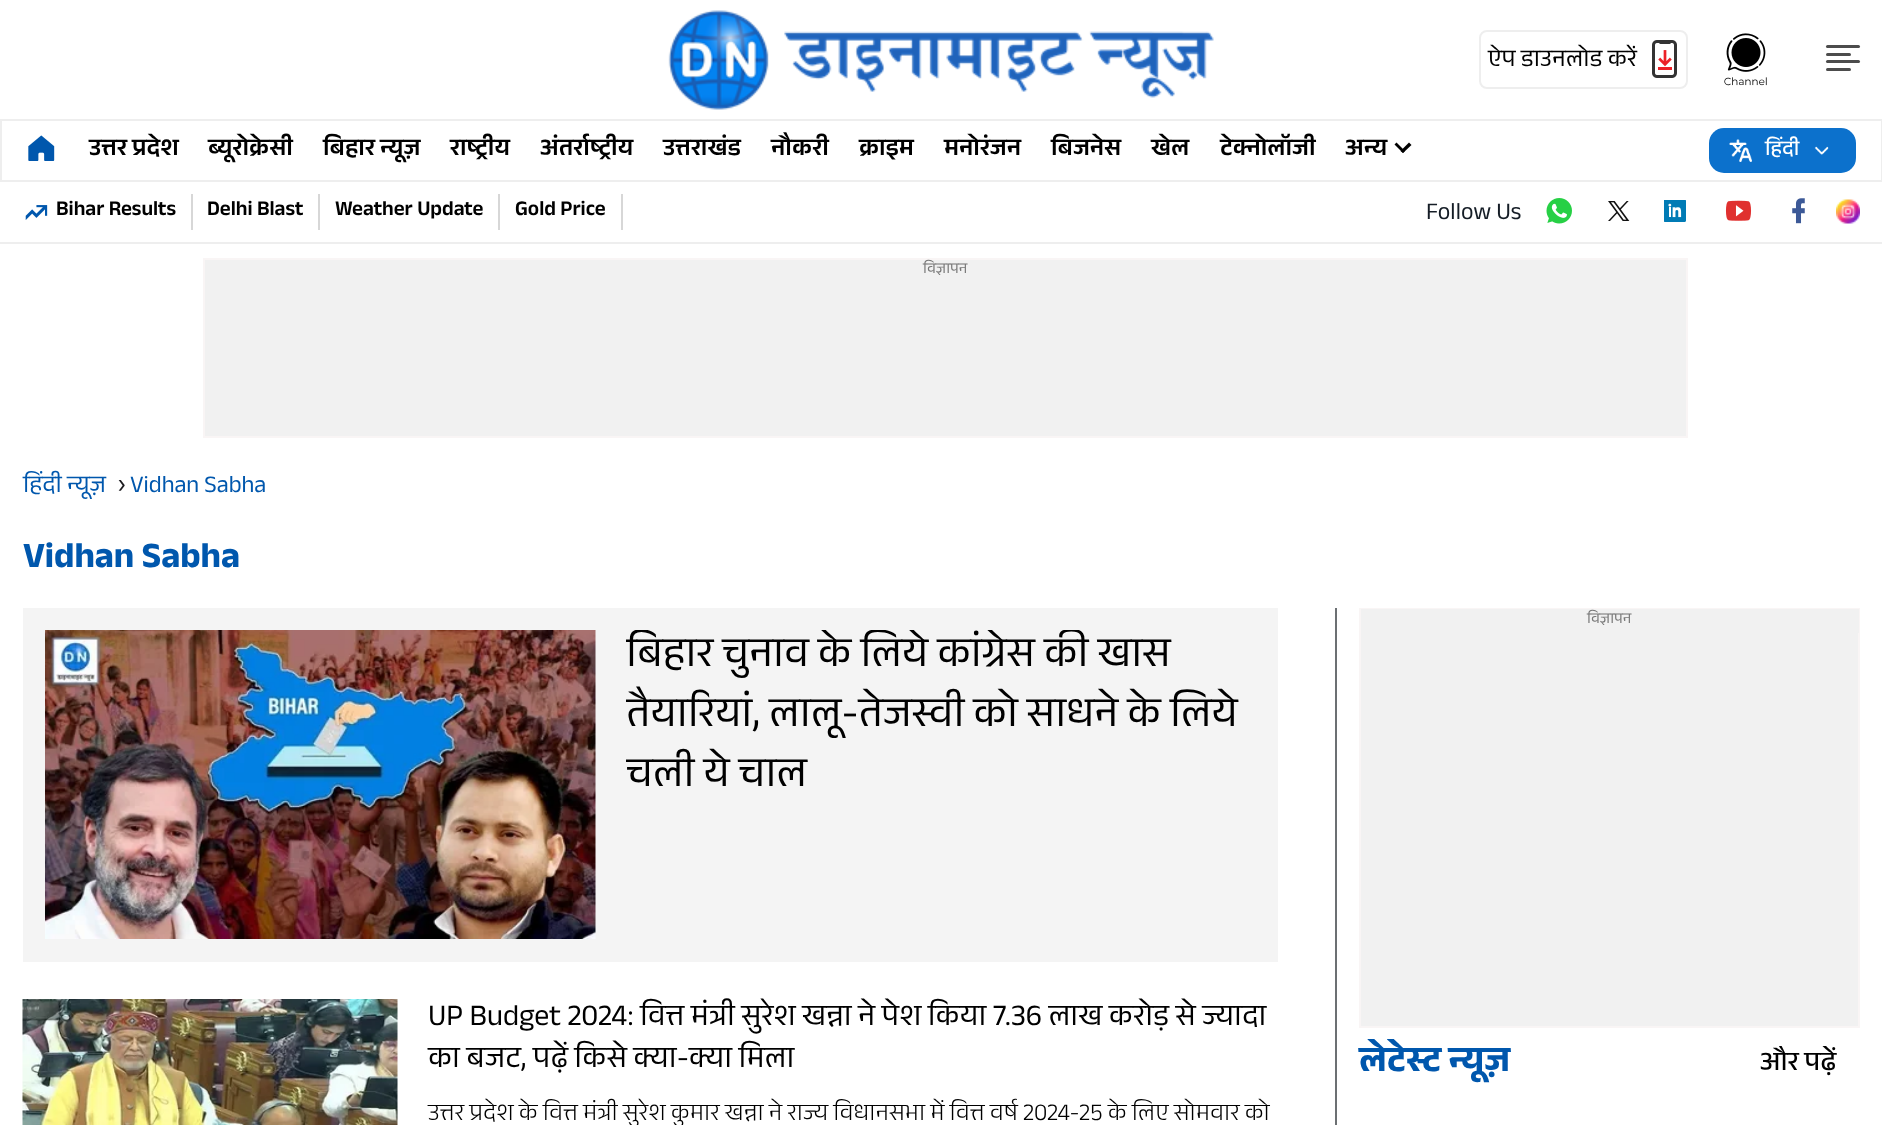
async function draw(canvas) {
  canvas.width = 1882;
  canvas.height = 1125;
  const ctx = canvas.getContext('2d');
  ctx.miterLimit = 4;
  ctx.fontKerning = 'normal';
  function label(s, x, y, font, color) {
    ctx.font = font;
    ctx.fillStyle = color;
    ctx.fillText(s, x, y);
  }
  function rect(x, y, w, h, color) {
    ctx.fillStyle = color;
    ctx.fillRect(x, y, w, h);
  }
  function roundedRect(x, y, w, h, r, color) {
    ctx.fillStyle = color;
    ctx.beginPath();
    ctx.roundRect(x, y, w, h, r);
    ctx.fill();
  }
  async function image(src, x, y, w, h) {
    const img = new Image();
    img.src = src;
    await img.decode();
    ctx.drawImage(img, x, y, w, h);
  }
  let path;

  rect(0, 0, 1882, 1125, '#fff');
  await image('assets/img1.png', 668, 10, 546, 100);
  ctx.beginPath();
  ctx.roundRect(1480, 31, 207, 57, 7);
  ctx.strokeStyle = '#eee';
  ctx.lineWidth = 2;
  ctx.stroke();
  label('ऐप डाउनलोड करें', 1488, 66, '24px Anek Devanagari', '#000');
  await image('assets/img2.png', 1652, 40, 25, 38);
  await image('assets/img3.png', 1724, 33, 43, 53);
  roundedRect(1826, 45, 34, 3, 1.5, '#4c4c4c');
  roundedRect(1826, 53, 25, 3, 1.5, '#4c4c4c');
  roundedRect(1826, 60, 34, 3, 1.5, '#4c4c4c');
  roundedRect(1826, 68, 25, 3, 1.5, '#4c4c4c');
  ctx.strokeRect(1, 120, 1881, 61);
  await image('assets/img4.png', 28, 135, 27, 26);
  label('उत्तर प्रदेश', 89, 155, '600 24px Anek Devanagari', '#000');
  label('ब्यूरोक्रेसी', 208, 155, '600 24px Anek Devanagari', '#000');
  label('बिहार न्यूज़', 323, 155, '600 24px Anek Devanagari', '#000');
  label('राष्ट्रीय', 450, 155, '600 24px Anek Devanagari', '#000');
  label('अंतर्राष्ट्रीय', 540, 155, '600 24px Anek Devanagari', '#000');
  label('उत्तराखंड', 663, 155, '600 24px Anek Devanagari', '#000');
  label('नौकरी', 771, 155, '600 24px Anek Devanagari', '#000');
  label('क्राइम', 859, 155, '600 24px Anek Devanagari', '#000');
  label('मनोरंजन', 944, 155, '600 24px Anek Devanagari', '#000');
  label('बिजनेस', 1051, 155, '600 24px Anek Devanagari', '#000');
  label('खेल', 1151, 155, '600 24px Anek Devanagari', '#000');
  label('टेक्नोलॉजी', 1220, 155, '600 24px Anek Devanagari', '#000');
  label('अन्य', 1345, 155, '600 24px Anek Devanagari', '#000');
  path = new Path2D('M1409 142.5L1411.5 145L1403 153L1400.5 151Z');
  ctx.fill(path);
  path = new Path2D('M1396.5 142.5L1405 151L1403 153L1394.5 144.5Z');
  ctx.fill(path);
  roundedRect(1709, 128, 147, 45, 15, '#0c71cc');
  await image('assets/img5.png', 1729, 139, 23, 23);
  label('हिंदी', 1765, 155, '500 21px Anek Devanagari', '#fff');
  await image('assets/img6.png', 1814, 146, 15, 9);
  rect(0, 242, 1882, 2, '#eee');
  await image('assets/img7.png', 25, 205, 23, 15);
  label('Bihar Results', 56, 215, '600 21px Anek Devanagari', '#000');
  rect(191, 194, 2, 36, '#d7d7d7');
  label('Delhi Blast', 207, 215, '600 21px Anek Devanagari', '#000');
  rect(318, 194, 2, 36, '#d7d7d7');
  label('Weather Update', 335, 215, '600 21px Anek Devanagari', '#000');
  rect(498, 194, 2, 36, '#d7d7d7');
  label('Gold Price', 515, 215, '600 21px Anek Devanagari', '#000');
  rect(621, 194, 2, 36, '#d7d7d7');
  label('Follow Us', 1426, 219, '24px Anek Devanagari', '#151d26');
  await image('assets/img8.png', 1546, 198, 26, 26);
  await image('assets/img9.png', 1608, 201, 22, 20);
  await image('assets/img10.png', 1664, 200, 22, 22);
  await image('assets/img11.png', 1725, 200, 27, 21);
  await image('assets/img12.png', 1792, 198, 13, 26);
  await image('assets/img13.png', 1836, 199, 24, 25);
  ctx.fillStyle = '#f1f1f1';
  ctx.beginPath();
  ctx.rect(204, 259, 1483, 178);
  ctx.fill();
  ctx.strokeStyle = '#f9f5f5';
  ctx.stroke();
  label('विज्ञापन', 923, 273, '15px Anek Devanagari', '#777');
  label('हिंदी न्यूज़', 23, 492, '24px Anek Devanagari', '#0057ad');
  label('›', 118, 492, '27px Anek Devanagari', '#1c1b1f');
  label('Vidhan Sabha', 130, 492, '24px Anek Devanagari', '#0057ad');
  label('Vidhan Sabha', 23, 567, 'bold 36px Anek Devanagari', '#0057ad');
  rect(23, 608, 1255, 354, '#f4f4f4');
  await image('assets/img14.png', 45, 630, 551, 309);
  ctx.save();
  ctx.beginPath();
  ctx.rect(626, 630, 630, 180);
  ctx.clip();
  label('बिहार चुनाव के लिये कांग्रेस की खास', 626, 666, '42px Anek Devanagari', '#000');
  label('तैयारियां, लालू-तेजस्वी को साधने के लिये', 626, 726, '42px Anek Devanagari', '#000');
  label('चली ये चाल', 626, 786, '42px Anek Devanagari', '#000');
  ctx.restore();
  await image('assets/img15.png', 22, 999, 376, 126);
  label('UP Budget 2024: वित्त मंत्री सुरेश खन्ना ने पेश किया 7.36 लाख करोड़ से ज्यादा', 428, 1025, '30px Anek Devanagari', '#000');
  label('का बजट, पढ़ें किसे क्या-क्या मिला', 428, 1067, '30px Anek Devanagari', '#000');
  label('उत्तर प्रदेश के वित्त मंत्री सुरेश कुमार खन्ना ने राज्य विधानसभा में वित्त वर्ष 2024-25 के लिए सोमवार को', 428, 1120, '300 24px Anek Devanagari', '#000');
  rect(1335, 608, 2, 517, '#6c7073');
  rect(1361, 633, 497, 393, '#f1f1f1');
  ctx.strokeRect(1360, 609, 499, 418);
  rect(1361, 609, 498, 24, '#f1f1f1');
  label('विज्ञापन', 1587, 623, '15px Anek Devanagari', '#777');
  label('लेटेस्ट न्यूज़', 1359, 1071, 'bold 36px Anek Devanagari', '#0057ad');
  ctx.save();
  ctx.beginPath();
  ctx.rect(1760, 1046, 100, 40);
  ctx.clip();
  label('और पढ़ें', 1760, 1070, '500 27px Anek Devanagari', '#000');
  ctx.restore();
}

draw(document.querySelector('canvas'));
